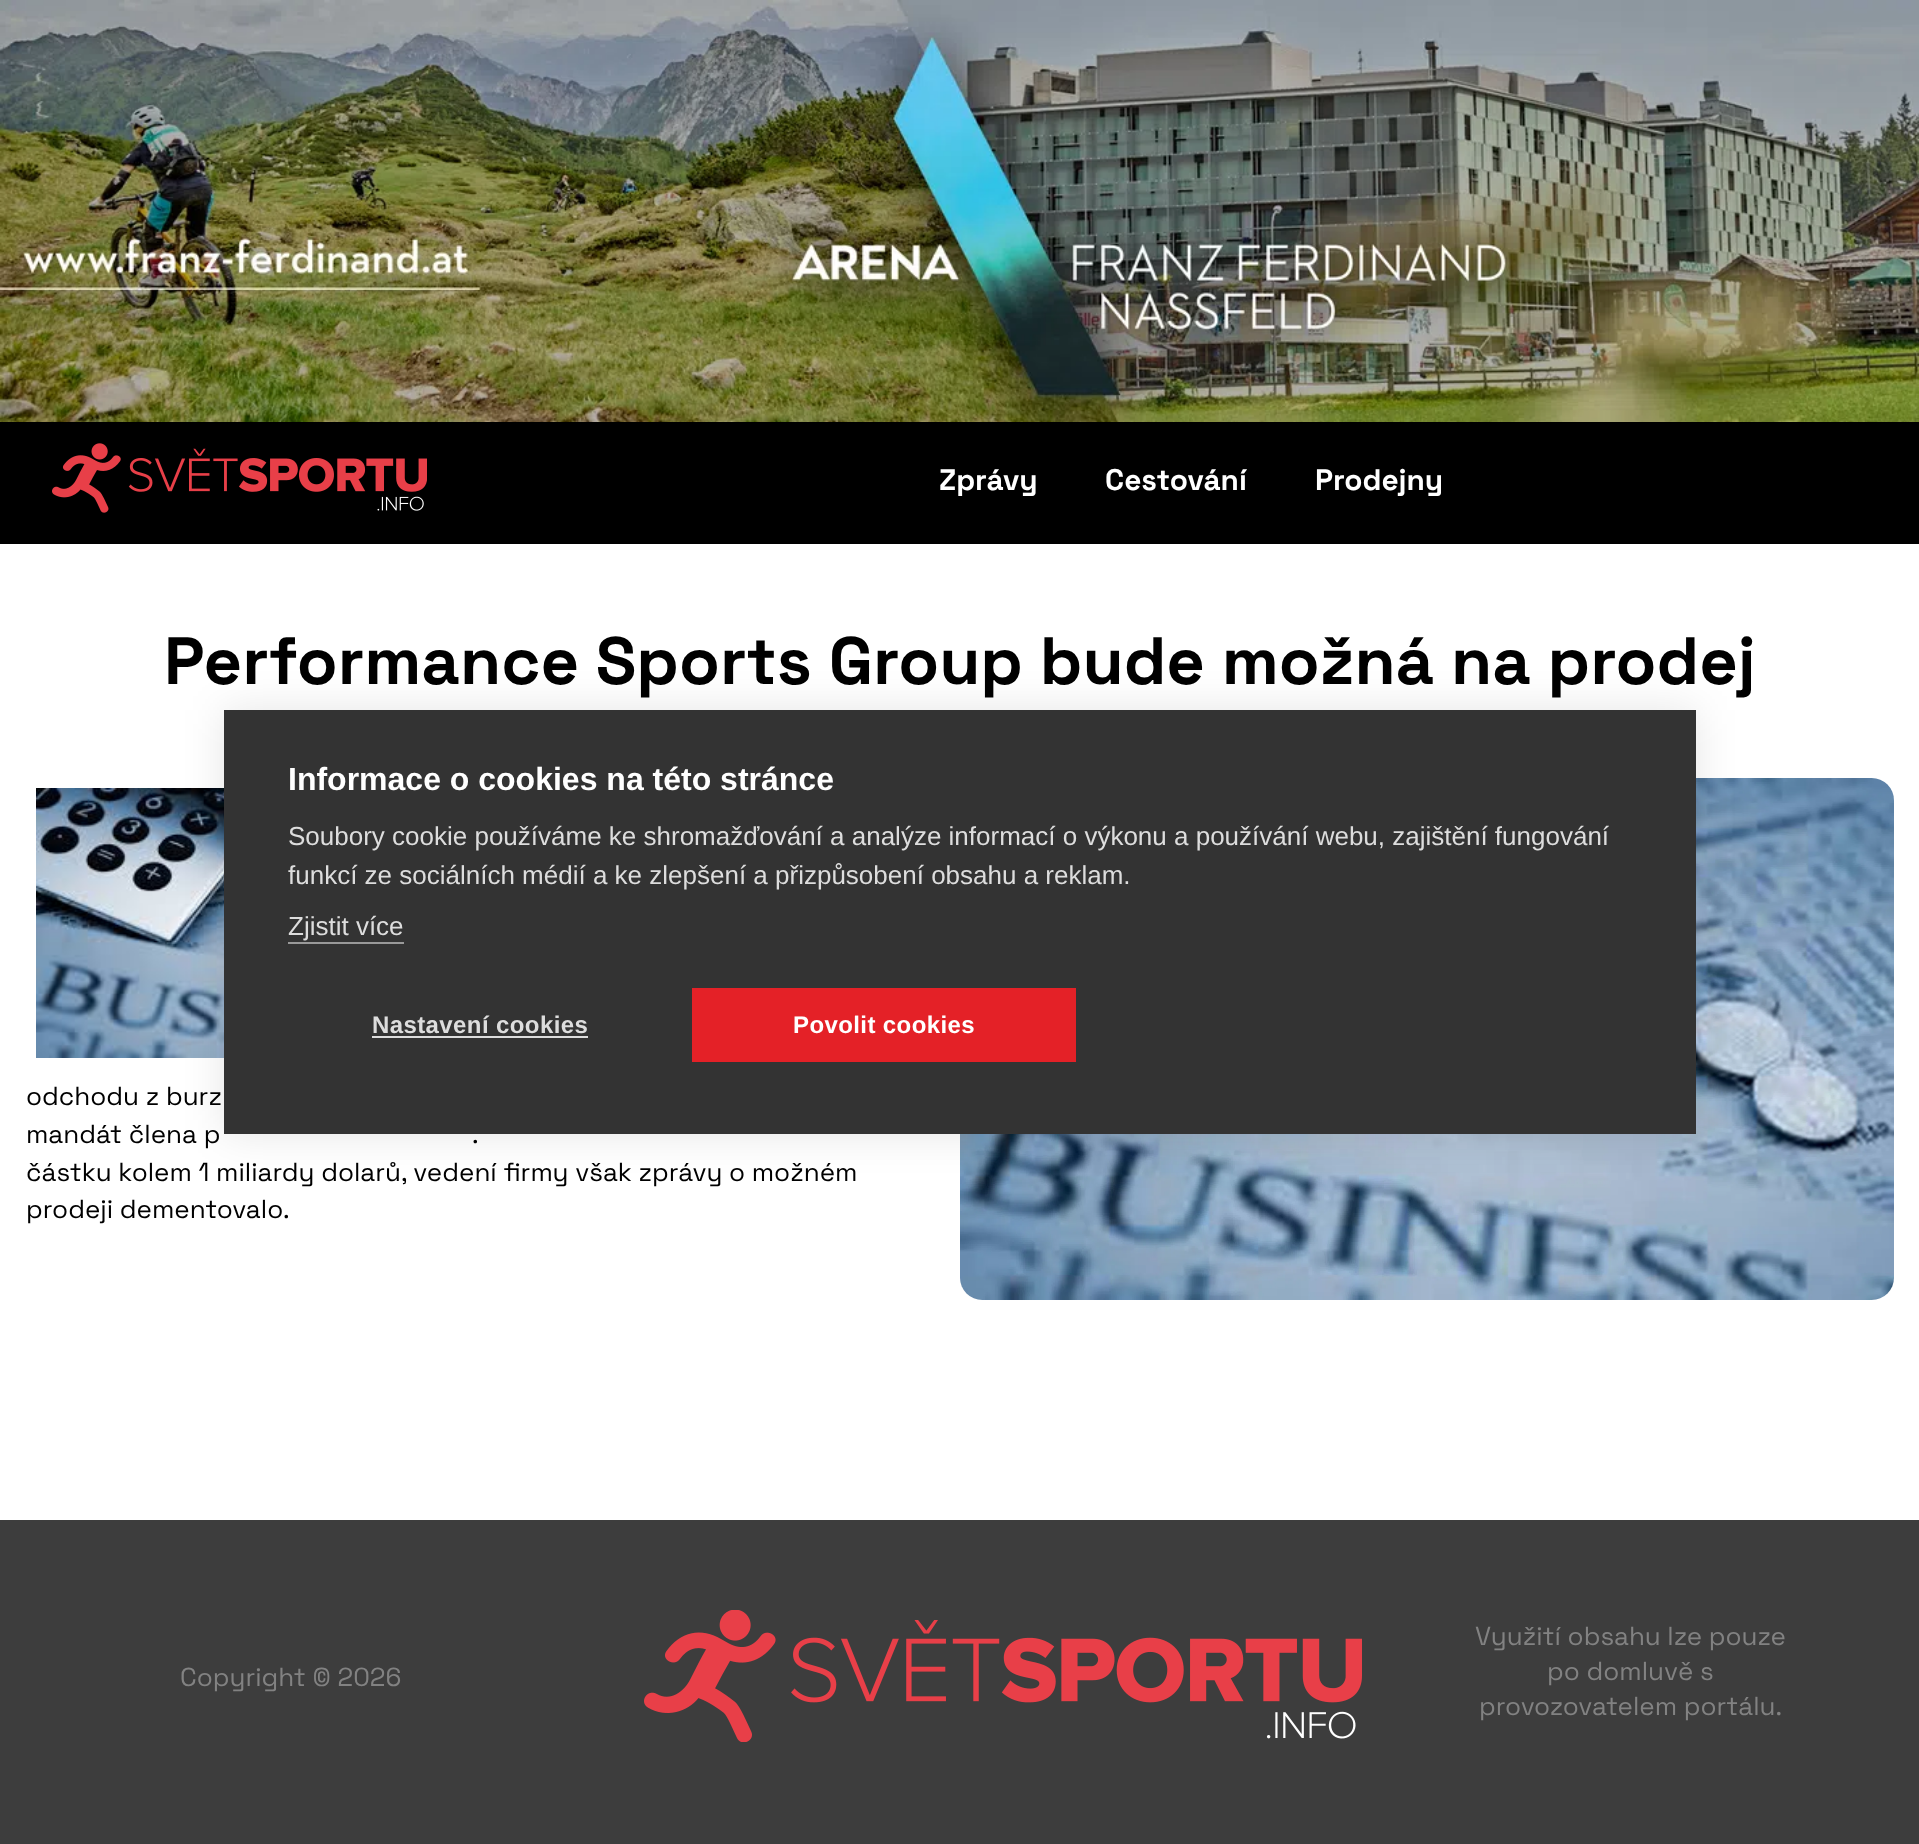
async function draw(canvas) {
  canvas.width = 1919;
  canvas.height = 1844;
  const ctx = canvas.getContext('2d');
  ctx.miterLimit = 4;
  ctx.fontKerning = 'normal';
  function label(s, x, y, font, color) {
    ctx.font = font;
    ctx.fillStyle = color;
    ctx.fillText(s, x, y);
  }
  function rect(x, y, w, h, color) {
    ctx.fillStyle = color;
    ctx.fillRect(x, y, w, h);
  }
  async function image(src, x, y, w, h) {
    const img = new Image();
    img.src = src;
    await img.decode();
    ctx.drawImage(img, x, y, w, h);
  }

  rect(0, 0, 1919, 1844, '#fff');
  await image('assets/img1.png', 0, 0, 1919, 422);
  rect(0, 422, 1919, 122, '#000');
  await image('assets/img2.png', 52, 443, 375, 70);
  label('Zprávy', 939, 490, 'bold 29.75px Space Grotesk', '#fff');
  label('Cestování', 1105, 490, 'bold 29.75px Space Grotesk', '#fff');
  label('Prodejny', 1315, 490, 'bold 29.75px Space Grotesk', '#fff');
  ctx.wordSpacing = '-0.25px';
  label('Performance Sports Group bude možná na prodej', 164, 684, 'bold 66.9px Space Grotesk', '#000');
  await image('assets/img3.png', 36, 788, 188, 270);
  ctx.wordSpacing = '0px';
  label('odchodu z burz', 26, 1105, '26px Space Grotesk', '#000');
  label('mandát člena p', 26, 1143, '26px Space Grotesk', '#000');
  label('.', 472, 1143, '26px Space Grotesk', '#000');
  label('částku kolem 1 miliardy dolarů, vedení firmy však zprávy o možném', 26, 1181, '26px Space Grotesk', '#000');
  label('prodeji dementovalo.', 26, 1218, '26px Space Grotesk', '#000');
  await image('assets/img4.png', 960, 778, 934, 522);
  ctx.fillStyle = '#0000001a';
  ctx.filter = 'blur(20px)';
  ctx.beginPath();
  ctx.rect(224, 710, 1472, 424);
  ctx.fill();
  ctx.filter = 'none';
  rect(224, 710, 1472, 424, '#333');
  label('Informace o cookies na této stránce', 288, 790, 'bold 32px Liberation Sans', '#fff');
  label('Soubory cookie používáme ke shromažďování a analýze informací o výkonu a používání webu, zajištění fungování', 288, 845, '26px Liberation Sans', '#ddd');
  label('funkcí ze sociálních médií a ke zlepšení a přizpůsobení obsahu a reklam.', 288, 884, '26px Liberation Sans', '#ddd');
  label('Zjistit více', 288, 935, '26px Liberation Sans', '#ddd');
  rect(288, 942, 116, 2, '#999');
  ctx.letterSpacing = '0.4px';
  label('Nastavení cookies', 372, 1033, 'bold 24px Liberation Sans', '#ddd');
  rect(372, 1036, 216, 2, '#ddd');
  rect(692, 988, 384, 74, '#e42127');
  label('Povolit cookies', 793, 1033, 'bold 24px Liberation Sans', '#fff');
  rect(0, 1520, 1919, 324, '#3d3d3d');
  ctx.letterSpacing = '0px';
  label('Copyright © 2026', 180, 1686, '26px Space Grotesk', '#828282');
  await image('assets/img5.png', 644, 1610, 718, 132);
  label('Využití obsahu lze pouze', 1475, 1645, '26px Space Grotesk', '#828282');
  label('po domluvě s', 1547, 1680, '26px Space Grotesk', '#828282');
  label('provozovatelem portálu.', 1479, 1715, '26px Space Grotesk', '#828282');
}

draw(document.querySelector('canvas'));
